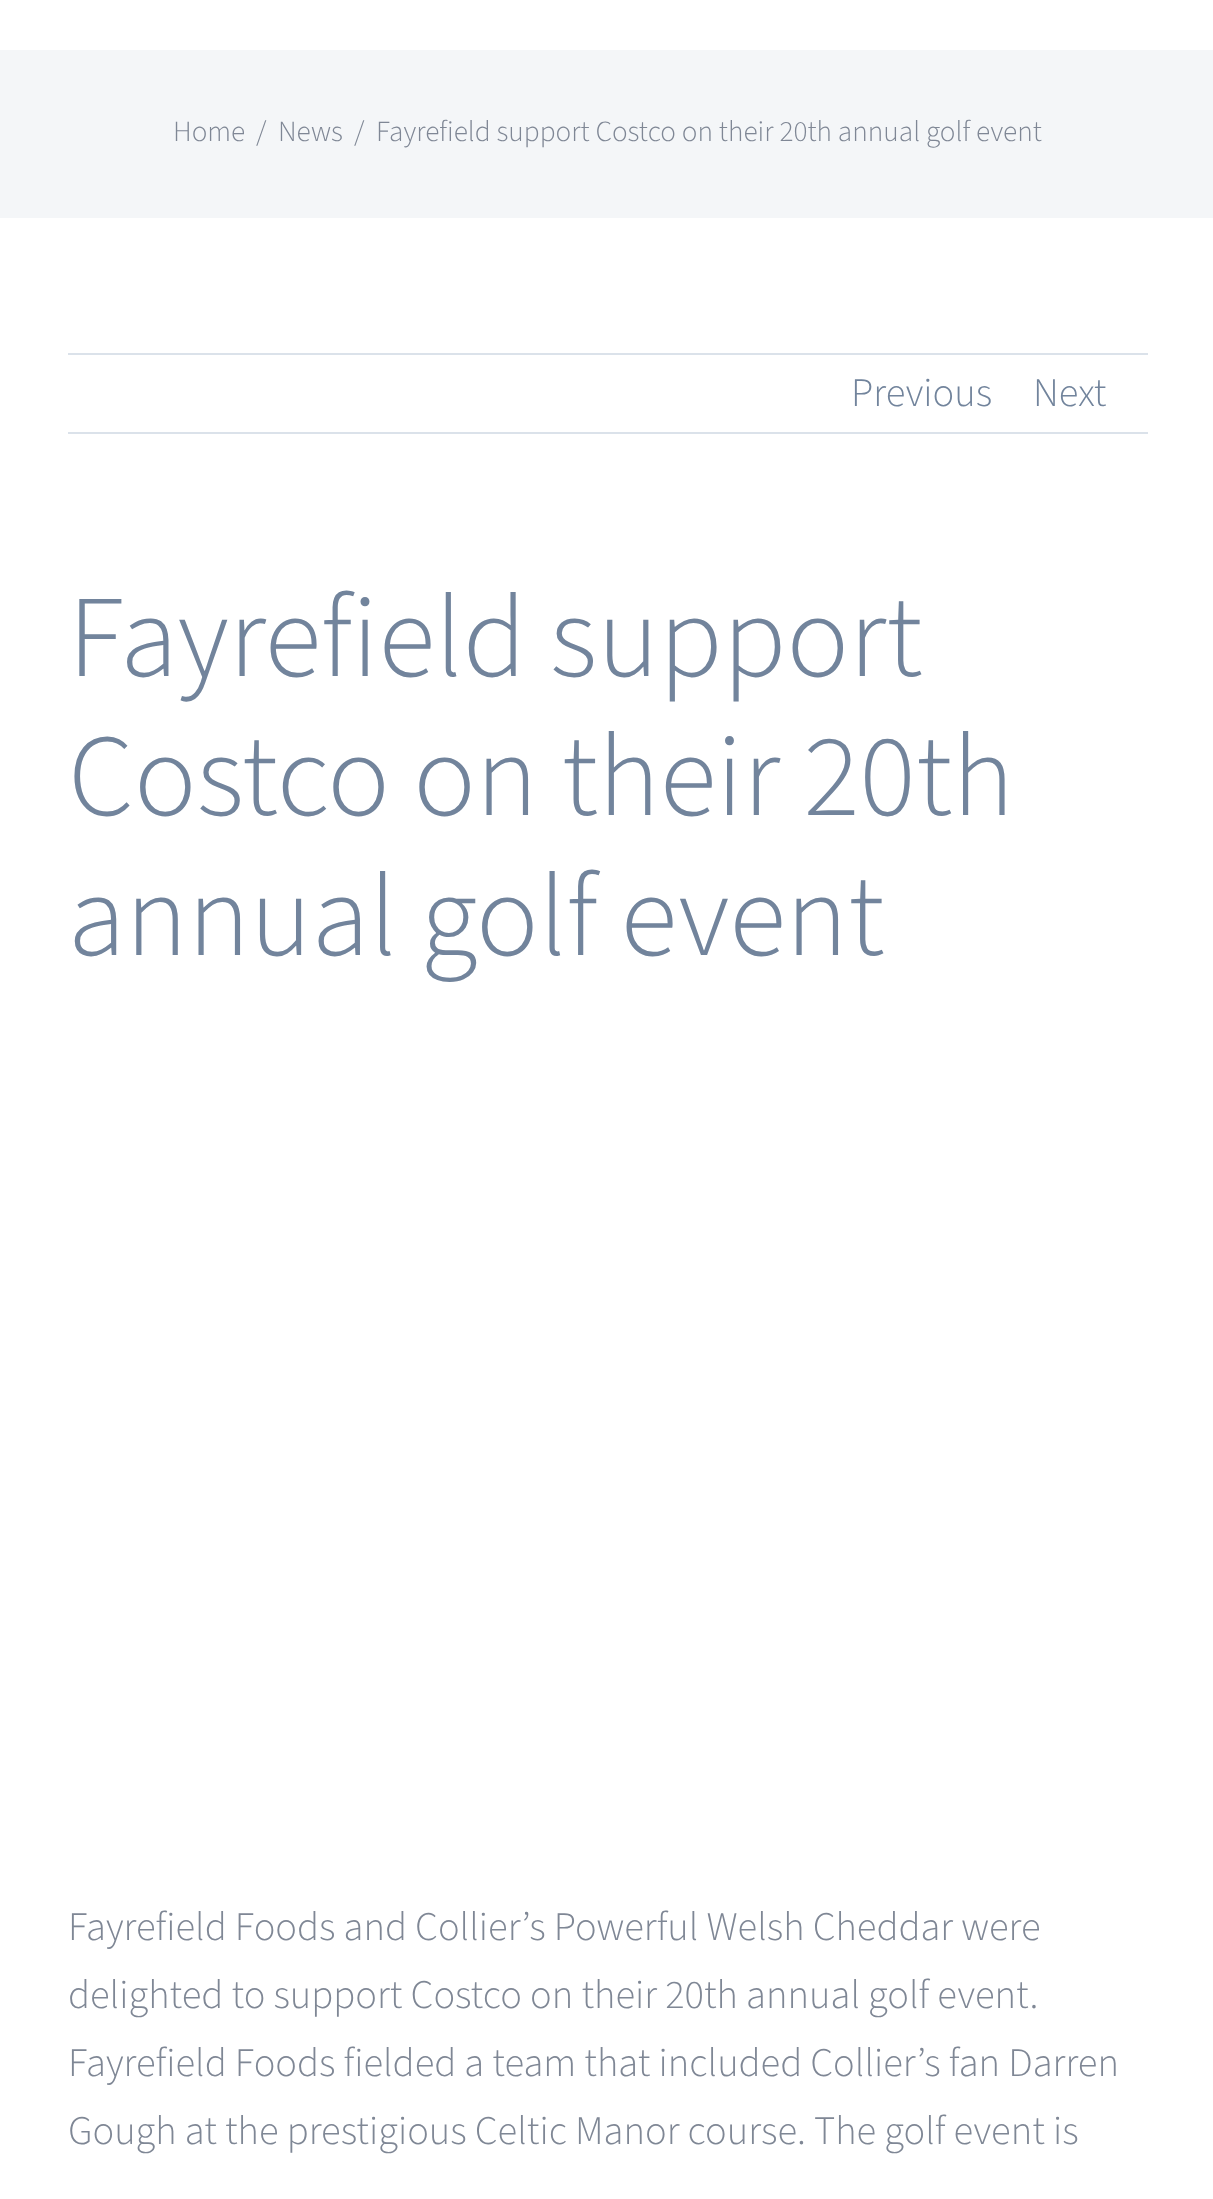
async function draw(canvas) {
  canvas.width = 1213;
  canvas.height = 2199;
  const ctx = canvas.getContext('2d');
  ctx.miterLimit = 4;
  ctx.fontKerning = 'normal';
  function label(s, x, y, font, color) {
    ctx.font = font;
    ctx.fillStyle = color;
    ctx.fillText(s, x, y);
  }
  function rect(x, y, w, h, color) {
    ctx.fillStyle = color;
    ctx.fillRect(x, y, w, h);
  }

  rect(0, 0, 1213, 2199, '#fff');
  rect(0, 50, 1213, 168, '#f4f6f8');
  label('Home', 173, 141, '300 29.25px "Source Sans 3"', '#7f8795');
  label('/', 256, 141, '300 29.25px "Source Sans 3"', '#7f8795');
  label('News', 278, 141, '300 29.25px "Source Sans 3"', '#7f8795');
  label('/', 354, 141, '300 29.25px "Source Sans 3"', '#7f8795');
  label('Fayrefield support Costco on their 20th annual golf event', 376, 141, '300 29.25px "Source Sans 3"', '#7f8795');
  rect(68, 353, 1080, 2, '#dbe2ea');
  rect(68, 432, 1080, 2, '#dbe2ea');
  label('Previous', 851, 406, '300 40.5px "Source Sans 3"', '#72849c');
  label('Next', 1033, 406, '300 40.5px "Source Sans 3"', '#72849c');
  label('Fayrefield support', 68, 676, '300 117px "Source Sans 3"', '#72849c');
  label('Costco on their 20th', 68, 815, '300 117px "Source Sans 3"', '#72849c');
  label('annual golf event', 68, 955, '300 117px "Source Sans 3"', '#72849c');
  label('Fayrefield Foods and Collier’s Powerful Welsh Cheddar were', 68, 1940, '300 40.5px "Source Sans 3"', '#7f8795');
  label('delighted to support Costco on their 20th annual golf event.', 68, 2008, '300 40.5px "Source Sans 3"', '#7f8795');
  label('Fayrefield Foods fielded a team that included Collier’s fan Darren', 68, 2076, '300 40.5px "Source Sans 3"', '#7f8795');
  label('Gough at the prestigious Celtic Manor course. The golf event is', 68, 2144, '300 40.5px "Source Sans 3"', '#7f8795');
}

draw(document.querySelector('canvas'));
